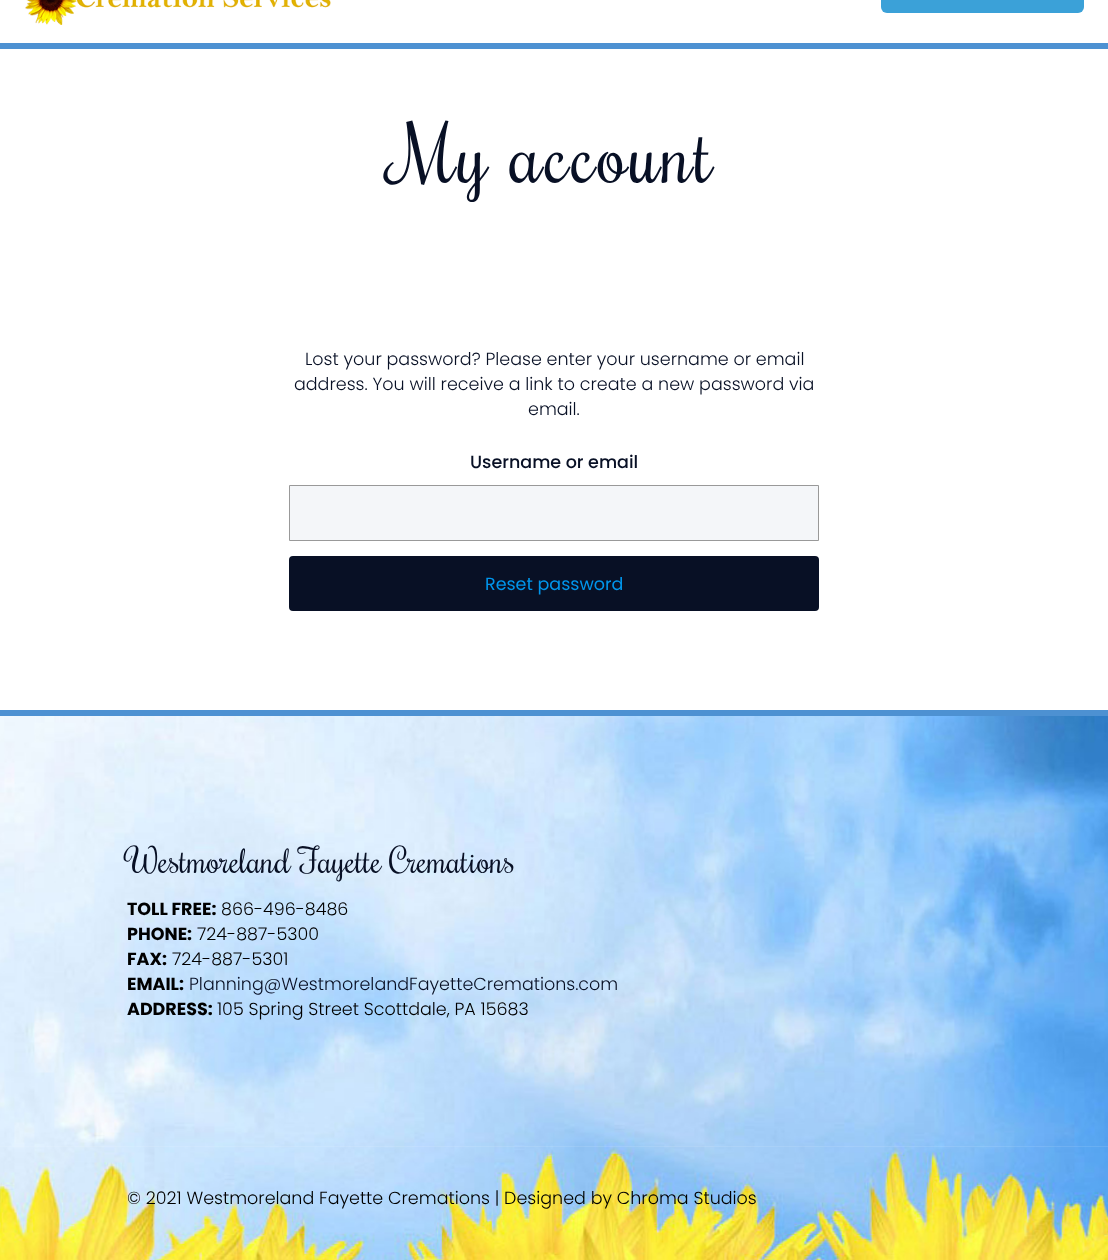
async function draw(canvas) {
  canvas.width = 1108;
  canvas.height = 1260;
  const ctx = canvas.getContext('2d');
  ctx.miterLimit = 4;
  ctx.fontKerning = 'normal';
  function label(s, x, y, font, color) {
    ctx.font = font;
    ctx.fillStyle = color;
    ctx.fillText(s, x, y);
  }
  function rect(x, y, w, h, color) {
    ctx.fillStyle = color;
    ctx.fillRect(x, y, w, h);
  }
  function roundedRect(x, y, w, h, r, color) {
    ctx.fillStyle = color;
    ctx.beginPath();
    ctx.roundRect(x, y, w, h, r);
    ctx.fill();
  }
  async function image(src, x, y, w, h) {
    const img = new Image();
    img.src = src;
    await img.decode();
    ctx.drawImage(img, x, y, w, h);
  }

  rect(0, 0, 1108, 1260, '#fff');
  rect(0, 43, 1108, 6, '#4d91d2');
  await image('assets/img1.png', 25, 0, 306, 25);
  roundedRect(881, -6, 203, 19, 6, '#3ba1d8');
  ctx.letterSpacing = '2.5px';
  label('My account', 393, 183, '76.25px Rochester', '#081025');
  ctx.letterSpacing = '0px';
  label('Lost your password? Please enter your username or email', 305, 365, '300 17.5px Poppins', '#081025');
  label('address. You will receive a link to create a new password via', 294, 390, '300 17.5px Poppins', '#081025');
  label('email.', 528, 415, '300 17.5px Poppins', '#081025');
  label('Username or email', 470, 468, '500 17.5px Poppins', '#081025');
  ctx.fillStyle = '#f4f6f9';
  ctx.beginPath();
  ctx.rect(289.5, 485.5, 529, 55);
  ctx.fill();
  ctx.strokeStyle = '#999';
  ctx.stroke();
  roundedRect(289, 556, 530, 55, 4, '#081025');
  label('Reset password', 485, 590, '17.5px Poppins', '#0095eb');
  await image('assets/img2.png', 0, 716, 1108, 544);
  rect(0, 710, 1108, 6, '#4d91d2');
  label('Westmoreland Fayette Cremations', 127, 873, '33.75px Rochester', '#081025');
  label('TOLL FREE:', 127, 915, 'bold 17.5px Poppins', '#000');
  label('866-496-8486', 221, 915, '300 17.5px Poppins', '#000');
  label('PHONE:', 127, 940, 'bold 17.5px Poppins', '#000');
  label('724-887-5300', 197, 940, '300 17.5px Poppins', '#000');
  label('FAX:', 127, 965, 'bold 17.5px Poppins', '#000');
  label('724-887-5301', 172, 965, '300 17.5px Poppins', '#000');
  label('EMAIL:', 127, 990, 'bold 17.5px Poppins', '#000');
  label('Planning@WestmorelandFayetteCremations.com', 189, 990, '300 17.5px Poppins', '#081025');
  label('ADDRESS:', 127, 1015, 'bold 17.5px Poppins', '#000');
  label('105 Spring Street Scottdale, PA 15683', 217, 1015, '300 17.5px Poppins', '#000');
  rect(0, 1146, 1108, 1, '#ffffff1a');
  label('© 2021 Westmoreland Fayette Cremations | Designed by Chroma Studios', 127, 1204, '300 17.5px Poppins', '#000');
}

draw(document.querySelector('canvas'));
